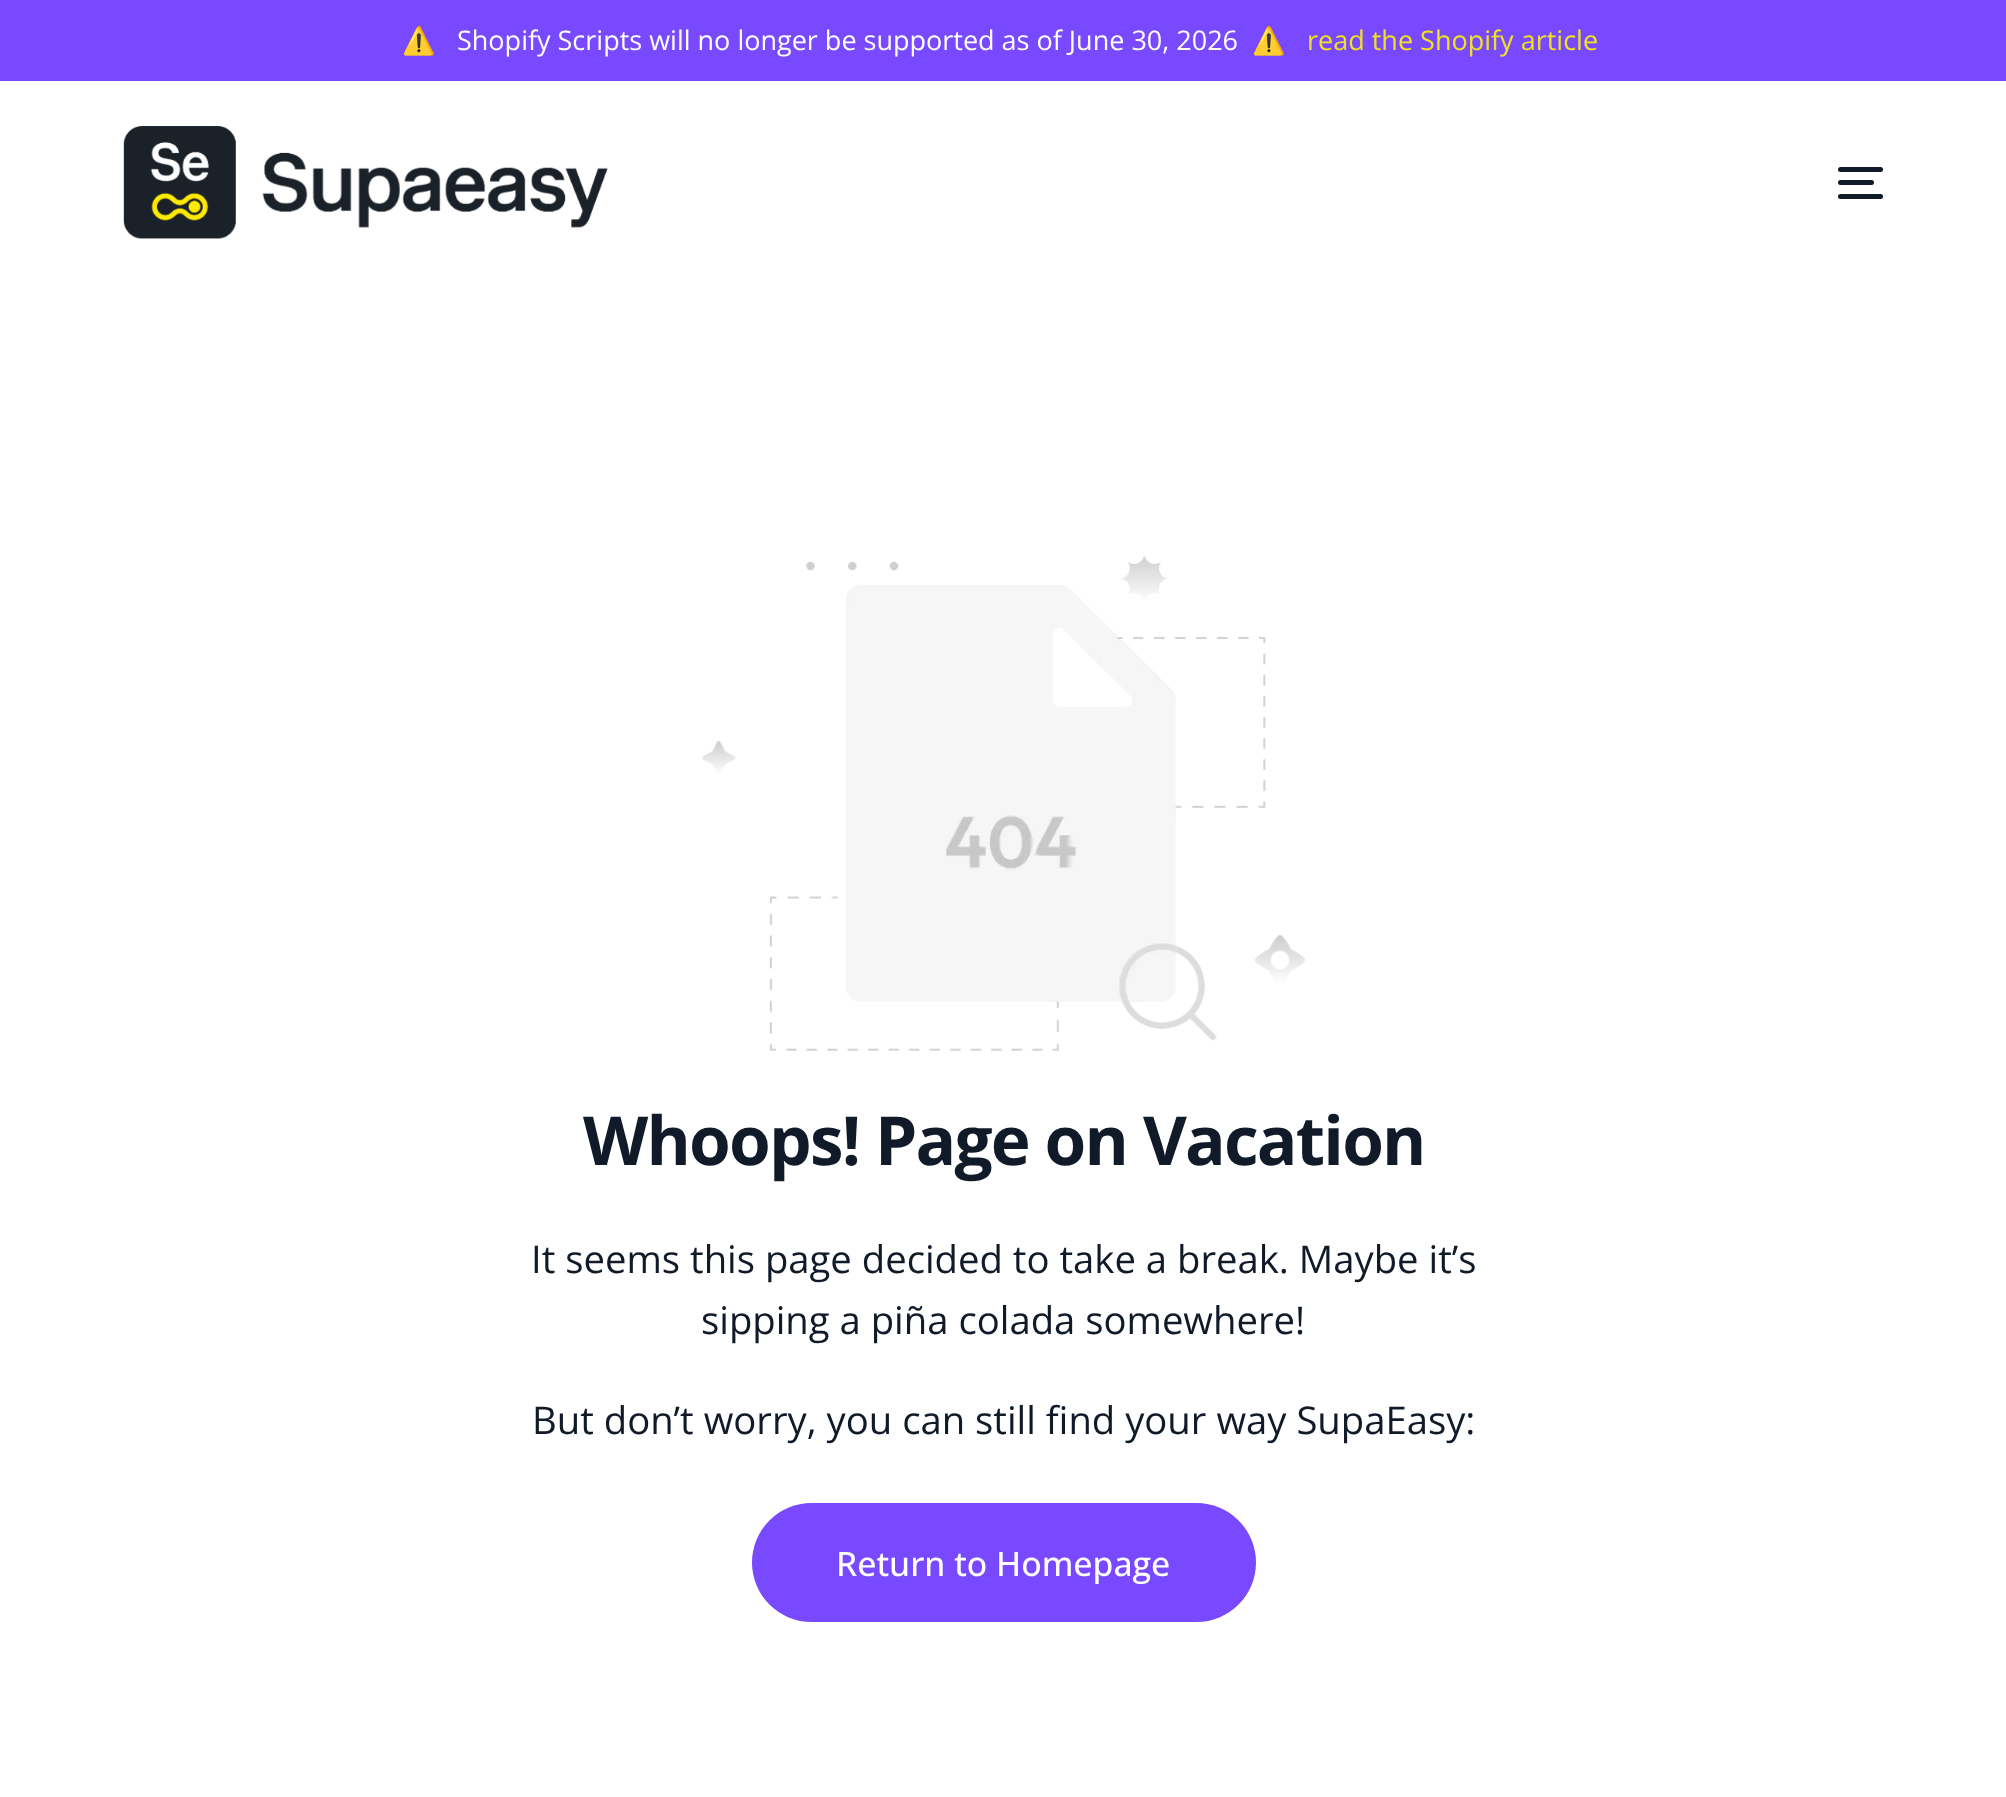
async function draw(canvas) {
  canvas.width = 2006;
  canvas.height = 1797;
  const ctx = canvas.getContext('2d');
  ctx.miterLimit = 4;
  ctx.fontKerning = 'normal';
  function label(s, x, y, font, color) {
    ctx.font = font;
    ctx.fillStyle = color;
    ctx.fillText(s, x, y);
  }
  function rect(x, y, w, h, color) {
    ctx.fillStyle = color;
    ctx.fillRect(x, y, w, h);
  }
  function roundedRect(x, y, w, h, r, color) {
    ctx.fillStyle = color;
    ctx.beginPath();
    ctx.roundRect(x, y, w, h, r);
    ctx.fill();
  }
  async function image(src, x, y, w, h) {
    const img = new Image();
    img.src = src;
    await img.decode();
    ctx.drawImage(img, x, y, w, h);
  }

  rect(0, 0, 2006, 1797, '#fff');
  rect(0, 0, 2006, 81, '#7849ff');
  label('⚠️', 402, 50, '27px Noto Color Emoji', '#fff');
  label('Shopify Scripts will no longer be supported as of June 30, 2026', 457, 50, '27px Open Sans', '#fff');
  label('⚠️', 1252, 50, '27px Noto Color Emoji', '#fff');
  label('read the Shopify article', 1307, 50, '27px Open Sans', '#f1e220');
  await image('assets/img1.png', 123, 126, 485, 113);
  roundedRect(1838, 167, 45, 5, 2.5, '#101a29');
  roundedRect(1838, 180, 36, 5, 2.5, '#101a29');
  roundedRect(1838, 194, 45, 5, 2.5, '#101a29');
  await image('assets/img2.png', 702, 555, 603, 496);
  ctx.letterSpacing = '-1.8px';
  label('Whoops! Page on Vacation', 583, 1165, 'bold 67.5px Open Sans', '#101a29');
  ctx.letterSpacing = '0px';
  label('It seems this page decided to take a break. Maybe it’s', 531, 1273, '38.25px Open Sans', '#101a29');
  label('sipping a piña colada somewhere!', 701, 1334, '38.25px Open Sans', '#101a29');
  label('But don’t worry, you can still find your way SupaEasy:', 532, 1434, '38.25px Open Sans', '#101a29');
  roundedRect(752, 1503, 504, 119, 59.5, '#7849ff');
  label('Return to Homepage', 836, 1576, '500 33.75px Open Sans', '#fff');
}

draw(document.querySelector('canvas'));
